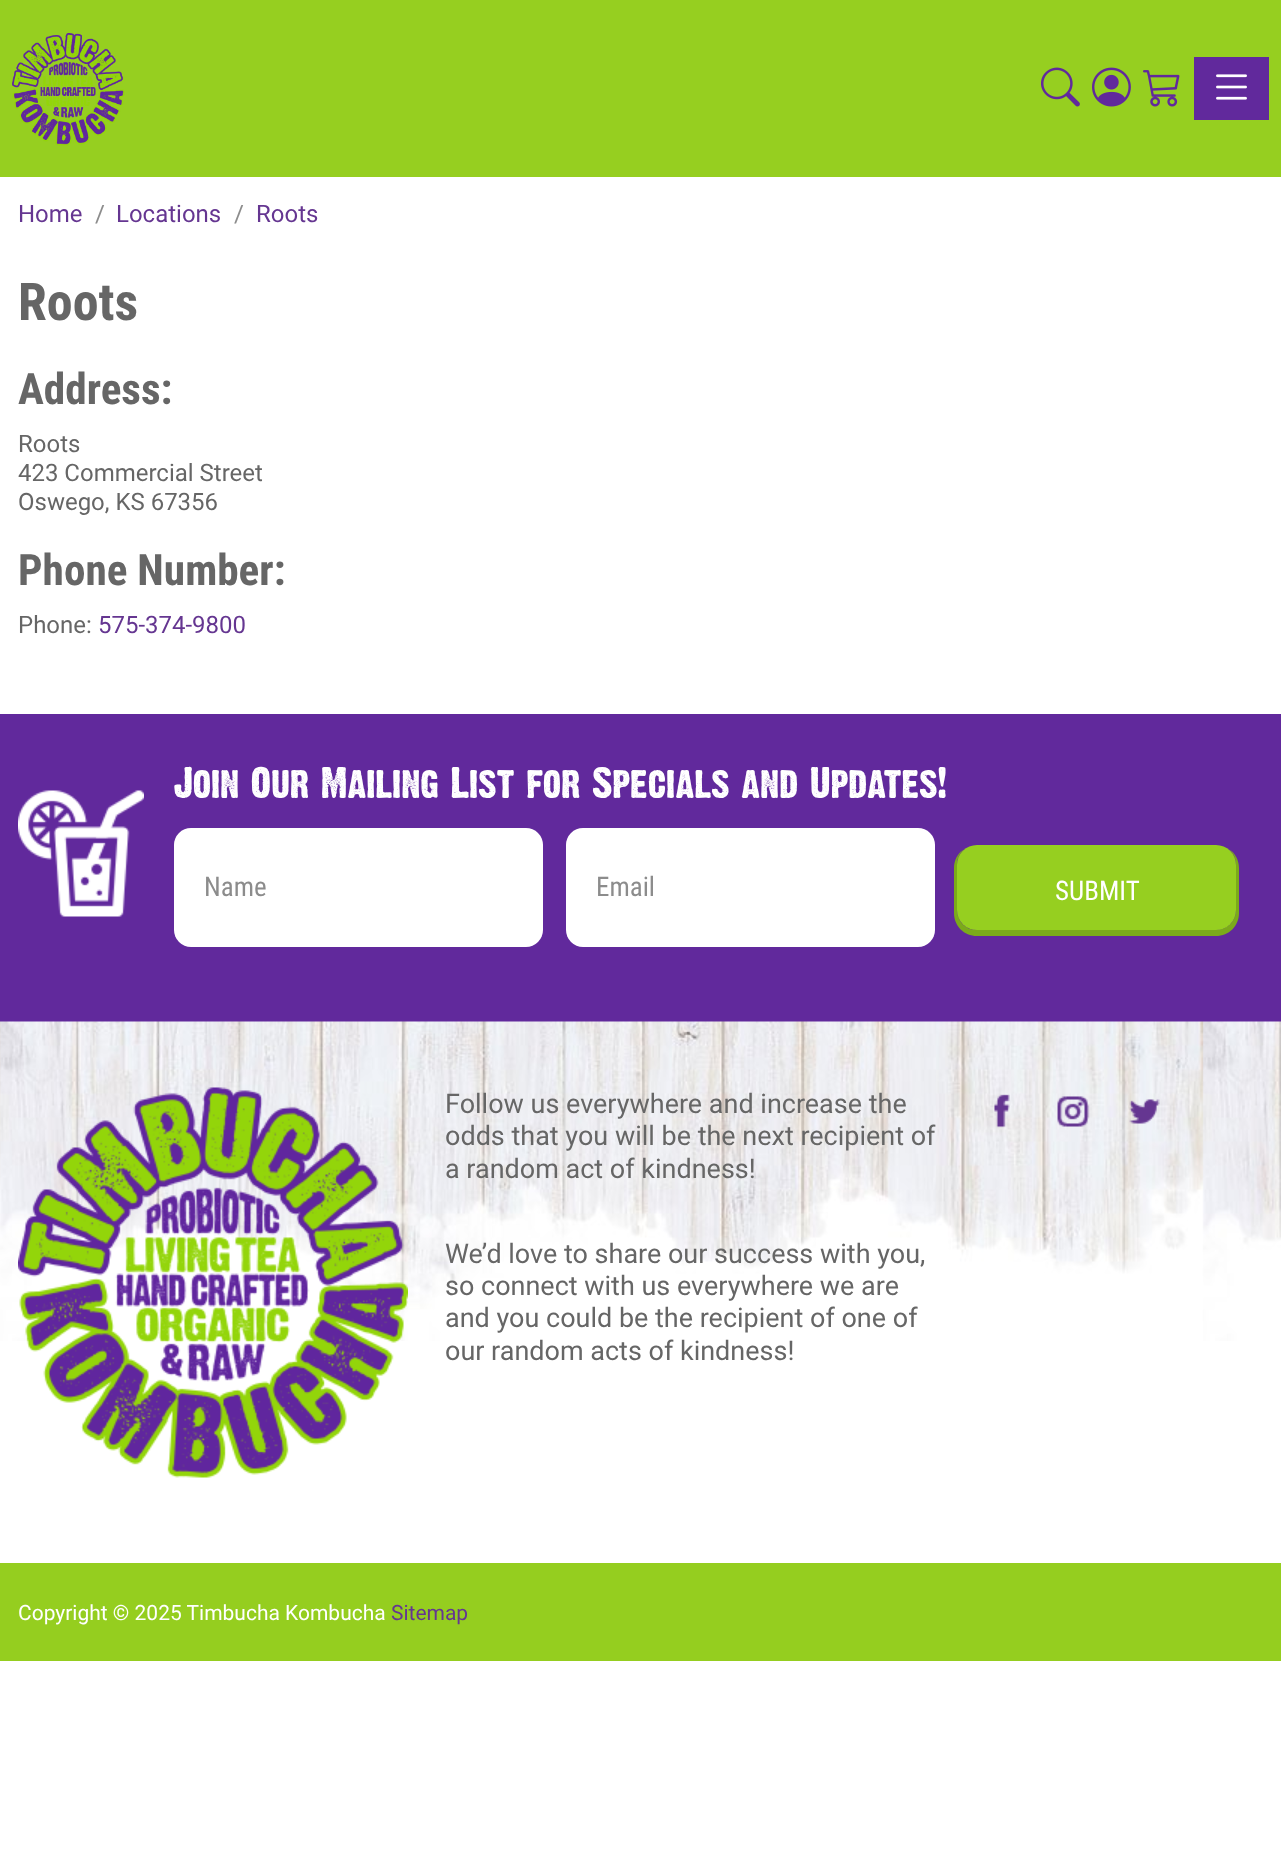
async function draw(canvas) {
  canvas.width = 1281;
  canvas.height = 1854;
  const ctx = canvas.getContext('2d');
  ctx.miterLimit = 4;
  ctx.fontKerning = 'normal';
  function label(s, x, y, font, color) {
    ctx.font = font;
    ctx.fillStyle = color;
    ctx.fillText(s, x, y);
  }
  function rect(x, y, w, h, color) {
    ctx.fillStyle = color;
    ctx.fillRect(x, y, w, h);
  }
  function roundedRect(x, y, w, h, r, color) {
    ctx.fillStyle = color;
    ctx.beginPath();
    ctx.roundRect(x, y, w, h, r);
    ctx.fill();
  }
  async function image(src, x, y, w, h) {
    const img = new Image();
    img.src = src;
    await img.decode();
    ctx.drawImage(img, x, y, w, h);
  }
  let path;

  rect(0, 0, 1281, 1854, '#fff');
  rect(0, 0, 1281, 177, '#96cf20');
  await image('assets/img1.png', 12, 33, 113, 113);
  await image('assets/img2.png', 1041, 67, 39, 40);
  await image('assets/img3.png', 1092, 67, 39, 40);
  await image('assets/img4.png', 1143, 70, 37, 37);
  rect(1194, 57, 75, 63, '#61299c');
  await image('assets/img5.png', 1216, 74, 31, 26);
  label('Home', 18, 222, '24px Roboto', '#653691');
  label('/', 95, 222, '24px Roboto', '#8c8c8c');
  label('Locations', 116, 222, '24px Roboto', '#653691');
  label('/', 234, 222, '24px Roboto', '#8c8c8c');
  label('Roots', 256, 222, '24px Roboto', '#653691');
  label('Roots', 18, 320, 'bold 52px Roboto Condensed', '#666');
  label('Address:', 18, 404, 'bold 43.25px Roboto Condensed', '#666');
  label('Roots', 18, 452, '24px Roboto', '#666');
  label('423 Commercial Street', 18, 481, '24px Roboto', '#666');
  label('Oswego, KS 67356', 18, 510, '24px Roboto', '#666');
  label('Phone Number:', 18, 585, 'bold 43.25px Roboto Condensed', '#666');
  label('Phone:', 18, 633, '24px Roboto', '#666');
  label('575-374-9800', 98, 633, '24px Roboto', '#653691');
  rect(0, 714, 1281, 308, '#61299c');
  await image('assets/img6.png', 18, 790, 126, 127);
  label('Join Our Mailing List for Specials and Updates!', 174, 798, '38.9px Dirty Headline', '#fff');
  roundedRect(174, 828, 369, 119, 17, '#fff');
  label('Name', 204, 896, '27px Roboto Condensed', '#8c8c8c');
  roundedRect(566, 828, 369, 119, 17, '#fff');
  label('Email', 596, 896, '27px Roboto Condensed', '#8c8c8c');
  ctx.fillStyle = '#7baa1a';
  path = new Path2D('M964 849C958 853 954 860 954 868V913C954 926 964 936 977 936H1216C1229 936 1239 926 1239 913V868C1239 860 1235 853 1229 849C1233 853 1236 858 1236 864V910C1236 921 1227 930 1216 930H976C966 930 957 921 957 910V864C957 858 960 853 964 849Z');
  ctx.fill(path);
  roundedRect(957, 845, 279, 85, 20, '#96cf20');
  label('SUBMIT', 1055, 900, '27px Roboto Condensed', '#fff');
  await image('assets/img7.png', 0, 1021, 1281, 320);
  await image('assets/img8.png', 18, 1087, 390, 391);
  label('Follow us everywhere and increase the', 445, 1113, '27px Roboto', '#666');
  label('odds that you will be the next recipient of', 445, 1145, '27px Roboto', '#666');
  label('a random act of kindness!', 445, 1178, '27px Roboto', '#666');
  label('We’d love to share our success with you,', 445, 1263, '27px Roboto', '#666');
  label('so connect with us everywhere we are', 445, 1295, '27px Roboto', '#666');
  label('and you could be the recipient of one of', 445, 1327, '27px Roboto', '#666');
  label('our random acts of kindness!', 445, 1360, '27px Roboto', '#666');
  await image('assets/img9.png', 994, 1094, 16, 34);
  await image('assets/img10.png', 1057, 1096, 33, 31);
  await image('assets/img11.png', 1129, 1099, 31, 25);
  rect(0, 1563, 1281, 98, '#95ce1f');
  label('Copyright © 2025 Timbucha Kombucha', 18, 1620, '21px Roboto', '#fff');
  label('Sitemap', 391, 1620, '21px Roboto', '#653691');
}

draw(document.querySelector('canvas'));
